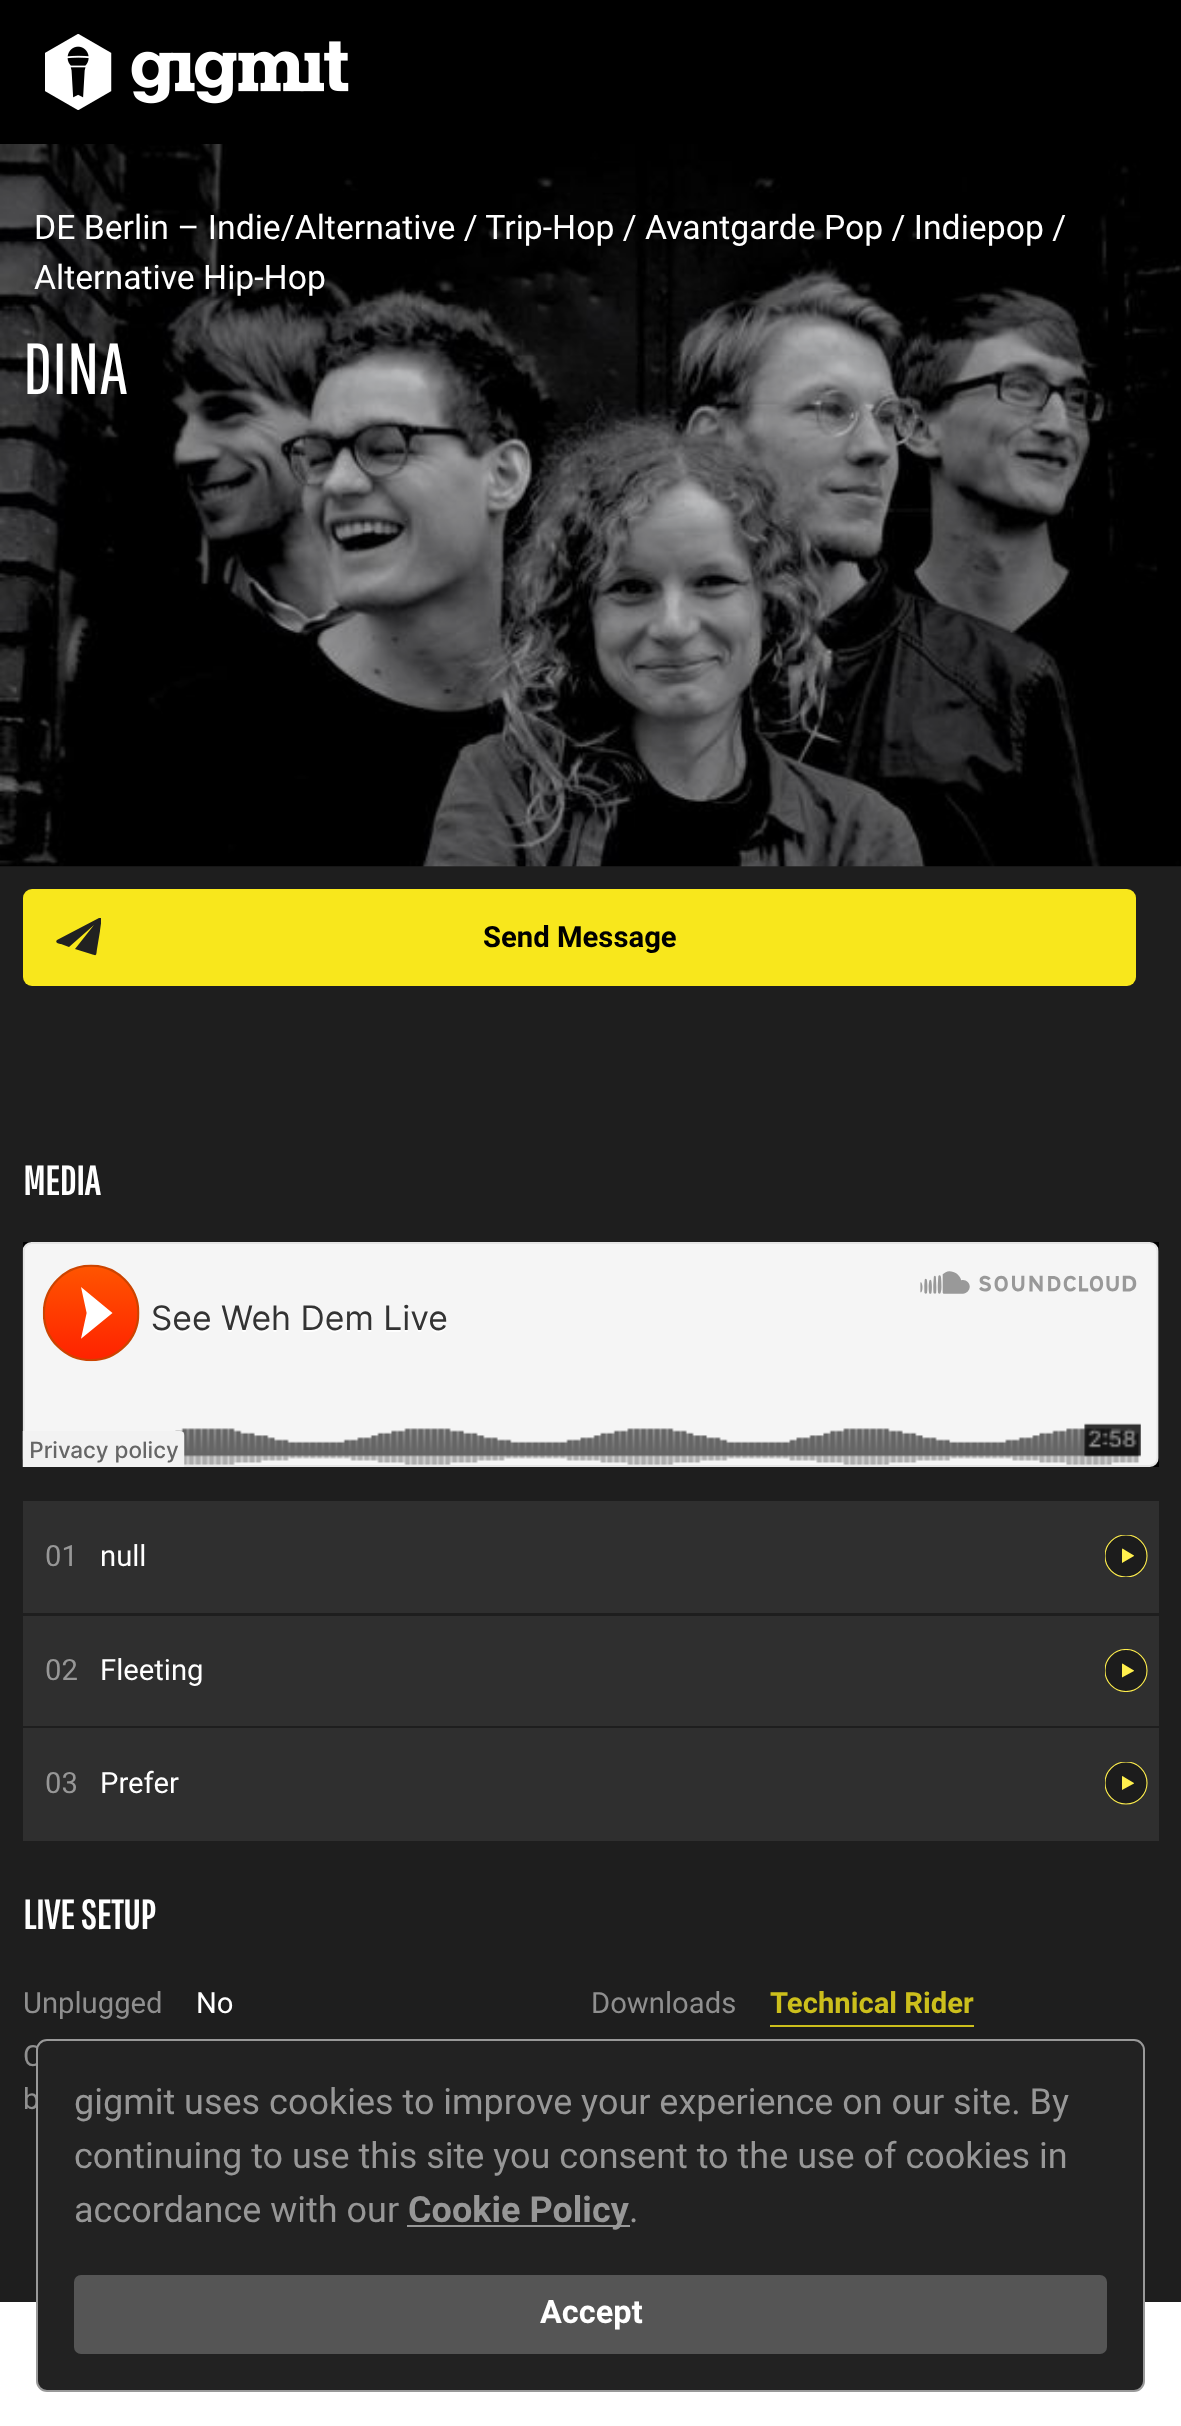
async function draw(canvas) {
  canvas.width = 1181;
  canvas.height = 2426;
  const ctx = canvas.getContext('2d');
  ctx.miterLimit = 4;
  ctx.fontKerning = 'normal';
  function label(s, x, y, font, color) {
    ctx.font = font;
    ctx.fillStyle = color;
    ctx.fillText(s, x, y);
  }
  function rect(x, y, w, h, color) {
    ctx.fillStyle = color;
    ctx.fillRect(x, y, w, h);
  }
  function roundedRect(x, y, w, h, r, color) {
    ctx.fillStyle = color;
    ctx.beginPath();
    ctx.roundRect(x, y, w, h, r);
    ctx.fill();
  }
  async function image(src, x, y, w, h) {
    const img = new Image();
    img.src = src;
    await img.decode();
    ctx.drawImage(img, x, y, w, h);
  }
  let path;

  rect(0, 0, 1181, 2426, '#fff');
  rect(0, 0, 1181, 144, '#000');
  await image('assets/img1.png', 45, 34, 304, 76);
  rect(0, 866, 1181, 1436, '#1e1e1e');
  await image('assets/img2.png', 0, 144, 1181, 723);
  label('DE Berlin – Indie/Alternative / Trip-Hop / Avantgarde Pop / Indiepop /', 34, 239, '33.75px Roboto', '#fff');
  label('Alternative Hip-Hop', 34, 289, '33.75px Roboto', '#fff');
  label('DINA', 23, 394, '72px Pathway Gothic One', '#fff');
  roundedRect(23, 889, 1113, 97, 9, '#f8e71c');
  ctx.save();
  ctx.beginPath();
  ctx.rect(56, 918, 45, 38);
  ctx.clip();
  ctx.fillStyle = '#212121';
  path = new Path2D('M101 918H99L57 940C54 943 61 944 61 944L69 947L94 925L75 949L91 954C97 956 96 956 97 949L100 931C100 929 102 920 101 918Z');
  ctx.fill(path);
  ctx.restore();
  label('Send Message', 483, 947, 'bold 29.25px Roboto', '#000');
  label('MEDIA', 23, 1195, 'bold 40.5px Pathway Gothic One', '#fff');
  rect(23, 1242, 1136, 225, '#000');
  await image('assets/img3.png', 22, 1242, 1137, 225);
  rect(23, 1501, 1136, 112, '#2f2f2f');
  label('01', 45, 1566, '29.25px Roboto', '#979797');
  label('null', 100, 1566, '29.25px Roboto', '#fff');
  ctx.fillStyle = '#1c1c1c';
  ctx.beginPath();
  ctx.arc(1126, 1556, 21, 0, 2 * Math.PI);
  ctx.fill();
  ctx.save();
  ctx.beginPath();
  ctx.rect(1105, 1535, 43, 42);
  ctx.clip();
  ctx.beginPath();
  ctx.arc(1126, 1556, 21, 0, 2 * Math.PI);
  ctx.strokeStyle = '#ffef4d';
  ctx.lineWidth = 1.1;
  ctx.stroke();
  ctx.restore();
  ctx.fillStyle = '#ffef4d';
  path = new Path2D('M1134 1555.5V1556L1122 1563V1551.5C1122 1547 1122 1548.5 1126.5 1551Z');
  ctx.fill(path);
  rect(23, 1616, 1136, 110, '#2f2f2f');
  label('02', 45, 1680, '29.25px Roboto', '#979797');
  label('Fleeting', 100, 1680, '29.25px Roboto', '#fff');
  ctx.fillStyle = '#1c1c1c';
  ctx.beginPath();
  ctx.arc(1126, 1670.5, 21, 0, 2 * Math.PI);
  ctx.fill();
  ctx.save();
  ctx.beginPath();
  ctx.rect(1105, 1649, 43, 43);
  ctx.clip();
  ctx.beginPath();
  ctx.arc(1126, 1670.5, 21, 0, 2 * Math.PI);
  ctx.strokeStyle = '#ffef4d';
  ctx.lineWidth = 1.1;
  ctx.stroke();
  ctx.restore();
  ctx.fillStyle = '#ffef4d';
  path = new Path2D('M1134 1670.5V1671L1122 1677.5V1666C1122 1662 1122 1663.5 1126.5 1666Z');
  ctx.fill(path);
  rect(23, 1728, 1136, 113, '#2f2f2f');
  label('03', 45, 1793, '29.25px Roboto', '#979797');
  label('Prefer', 100, 1793, '29.25px Roboto', '#fff');
  ctx.fillStyle = '#1c1c1c';
  ctx.beginPath();
  ctx.arc(1126, 1783, 21, 0, 2 * Math.PI);
  ctx.fill();
  ctx.save();
  ctx.beginPath();
  ctx.rect(1105, 1762, 43, 43);
  ctx.clip();
  ctx.beginPath();
  ctx.arc(1126, 1783, 21, 0, 2 * Math.PI);
  ctx.strokeStyle = '#ffef4d';
  ctx.lineWidth = 1.1;
  ctx.stroke();
  ctx.restore();
  ctx.fillStyle = '#ffef4d';
  path = new Path2D('M1134 1783V1783.5L1122 1790V1778.5C1122 1774.5 1122 1776 1126.5 1778.5Z');
  ctx.fill(path);
  label('LIVE SETUP', 23, 1929, 'bold 40.5px Pathway Gothic One', '#fff');
  label('Unplugged', 23, 2013, '29.25px Roboto', '#8f8f8f');
  label('No', 196, 2013, '29.25px Roboto', '#fff');
  label('C', 23, 2066, '29.25px Roboto', '#8f8f8f');
  label('b', 23, 2109, '29.25px Roboto', '#8f8f8f');
  label('Downloads', 591, 2013, '29.25px Roboto', '#8f8f8f');
  rect(770, 2025, 204, 2, '#ccbf1c');
  label('Technical Rider', 770, 2013, 'bold 29.25px Roboto', '#ccbf1c');
  ctx.fillStyle = '#222';
  ctx.beginPath();
  ctx.roundRect(37, 2040, 1107, 351, 10);
  ctx.fill();
  ctx.strokeStyle = '#999';
  ctx.lineWidth = 2;
  ctx.stroke();
  label('gigmit uses cookies to improve your experience on our site. By', 74, 2114, '36px Roboto', '#979797');
  label('continuing to use this site you consent to the use of cookies in', 74, 2168, '36px Roboto', '#979797');
  label('accordance with our', 74, 2222, '36px Roboto', '#979797');
  rect(407, 2225, 223, 2, '#999');
  label('Cookie Policy', 408, 2222, 'bold 36px Roboto', '#979797');
  label('.', 629, 2222, '36px Roboto', '#979797');
  roundedRect(74, 2275, 1033, 79, 7, '#555');
  label('Accept', 540, 2323, 'bold 32.5px Roboto', '#fff');
}

draw(document.querySelector('canvas'));
